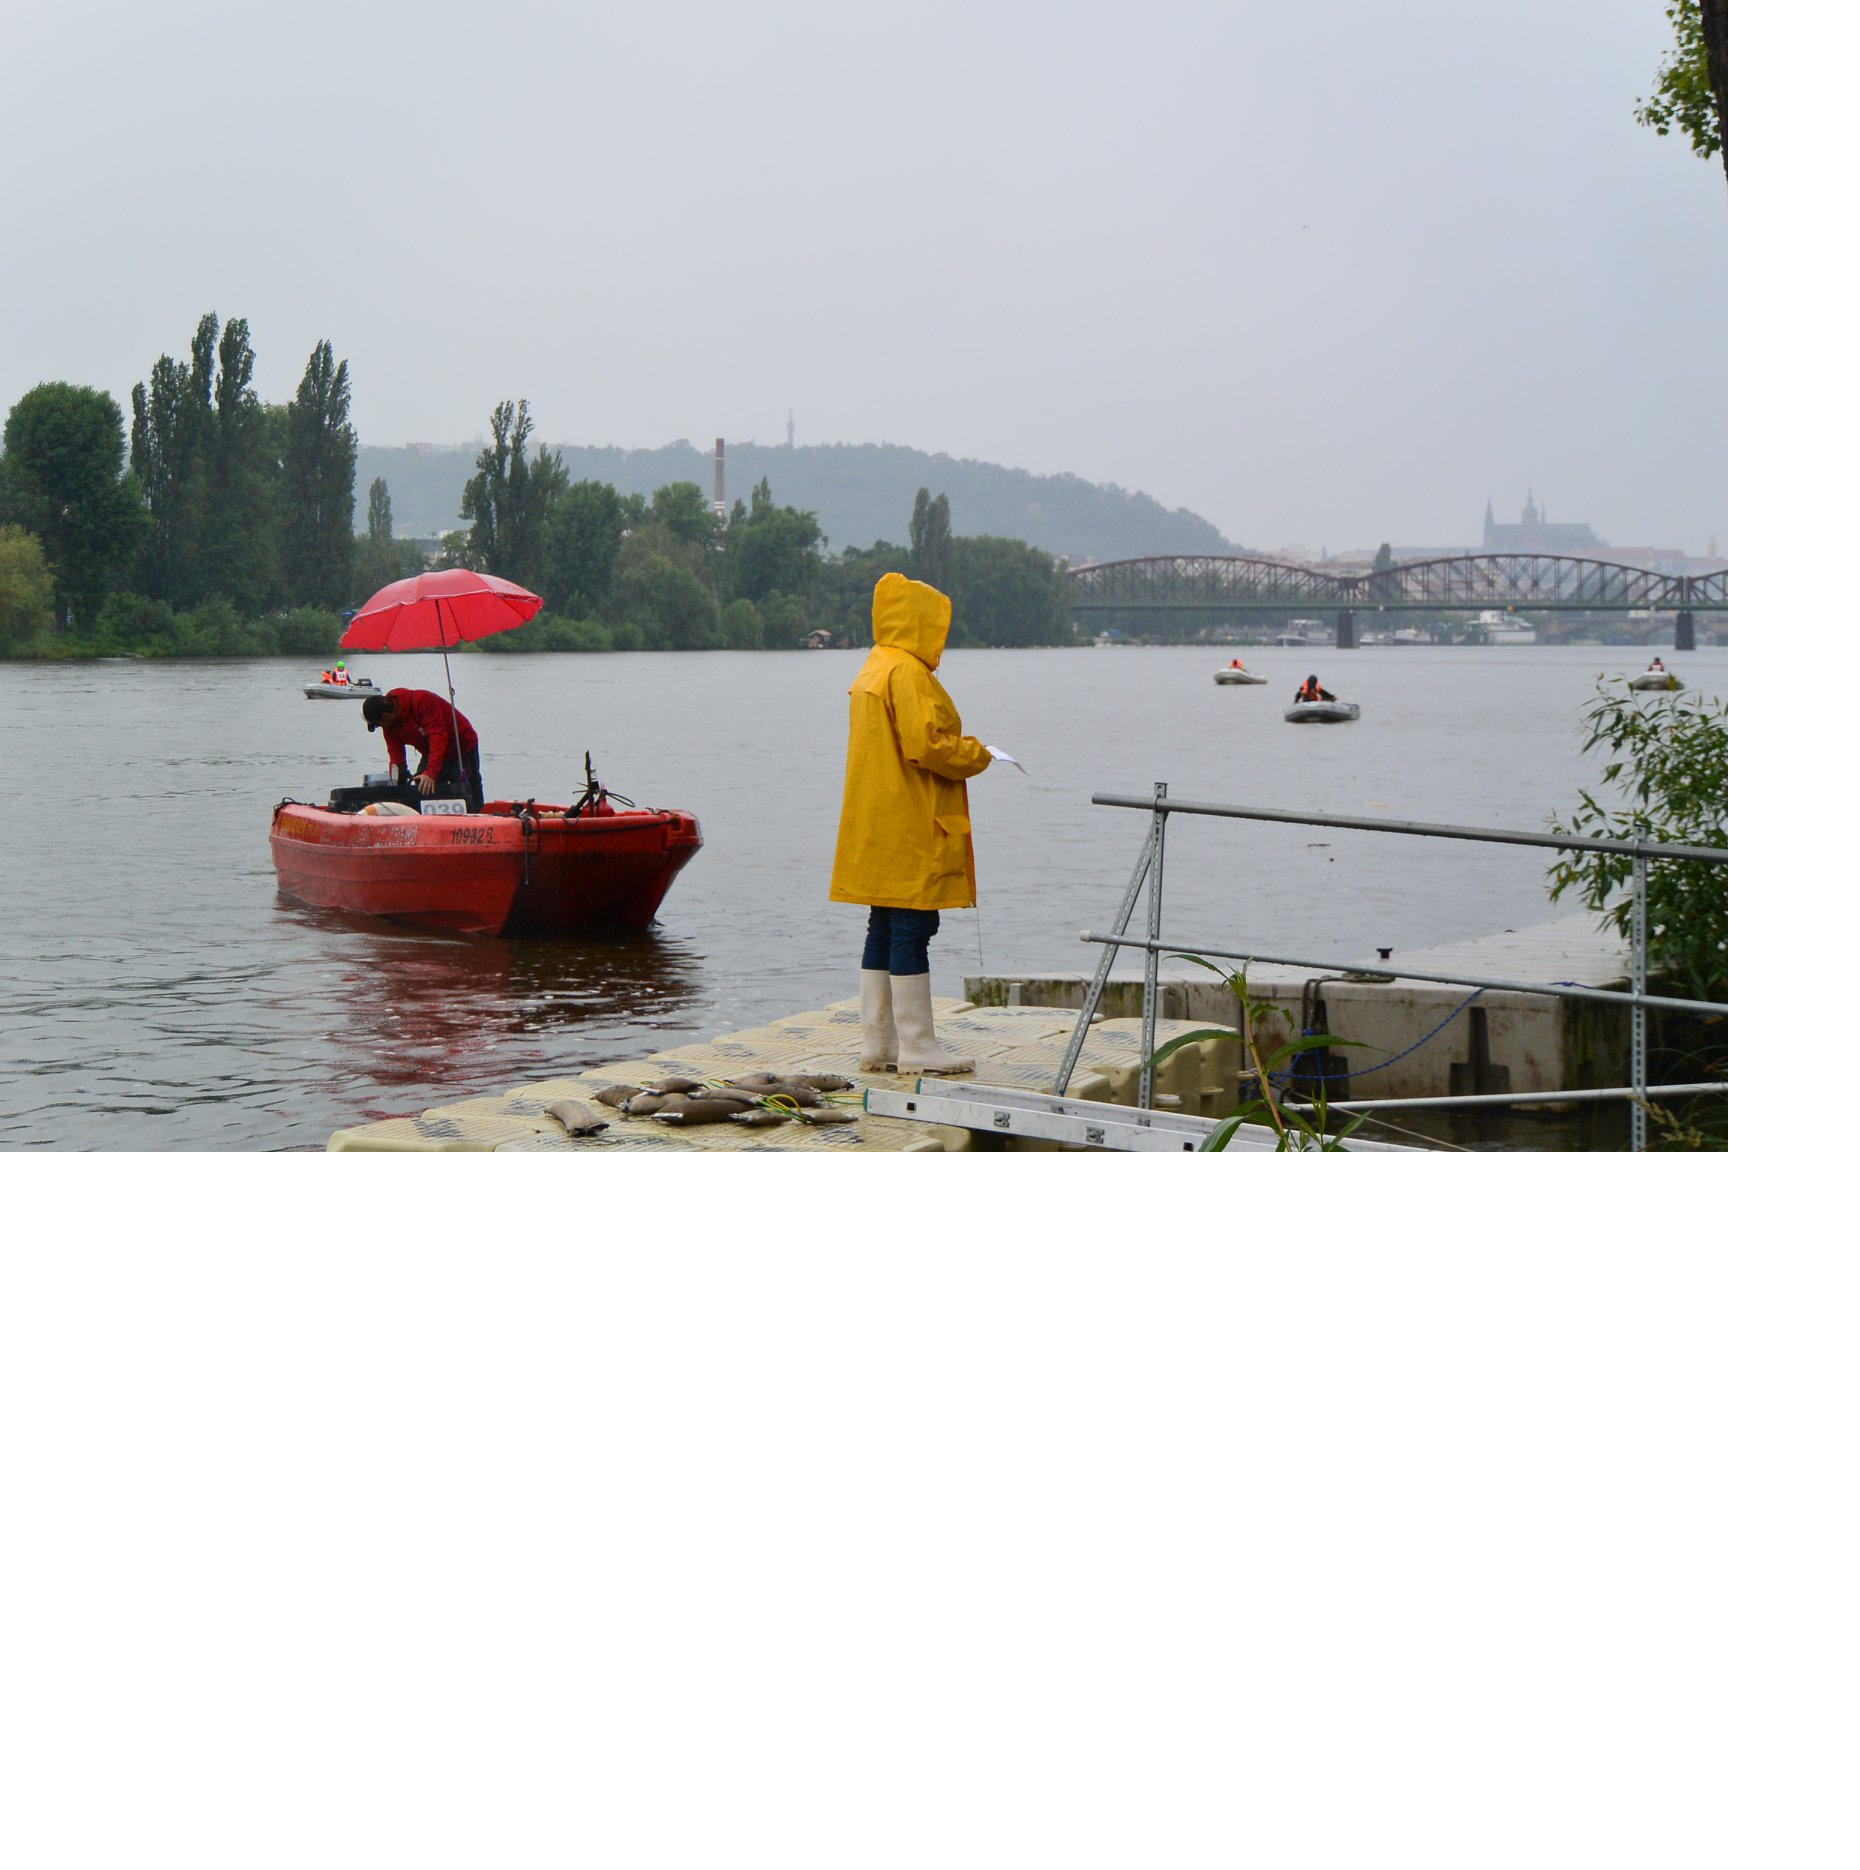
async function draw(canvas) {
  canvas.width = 1860;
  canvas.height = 1870;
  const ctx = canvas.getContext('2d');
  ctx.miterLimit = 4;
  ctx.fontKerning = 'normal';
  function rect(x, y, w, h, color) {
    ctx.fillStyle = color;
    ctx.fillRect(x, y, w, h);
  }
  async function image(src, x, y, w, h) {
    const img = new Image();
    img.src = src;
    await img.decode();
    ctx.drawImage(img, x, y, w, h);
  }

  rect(0, 0, 1860, 1870, '#fff');
  await image('assets/img1.png', 0, 0, 1728, 1152);
}

draw(document.querySelector('canvas'));
